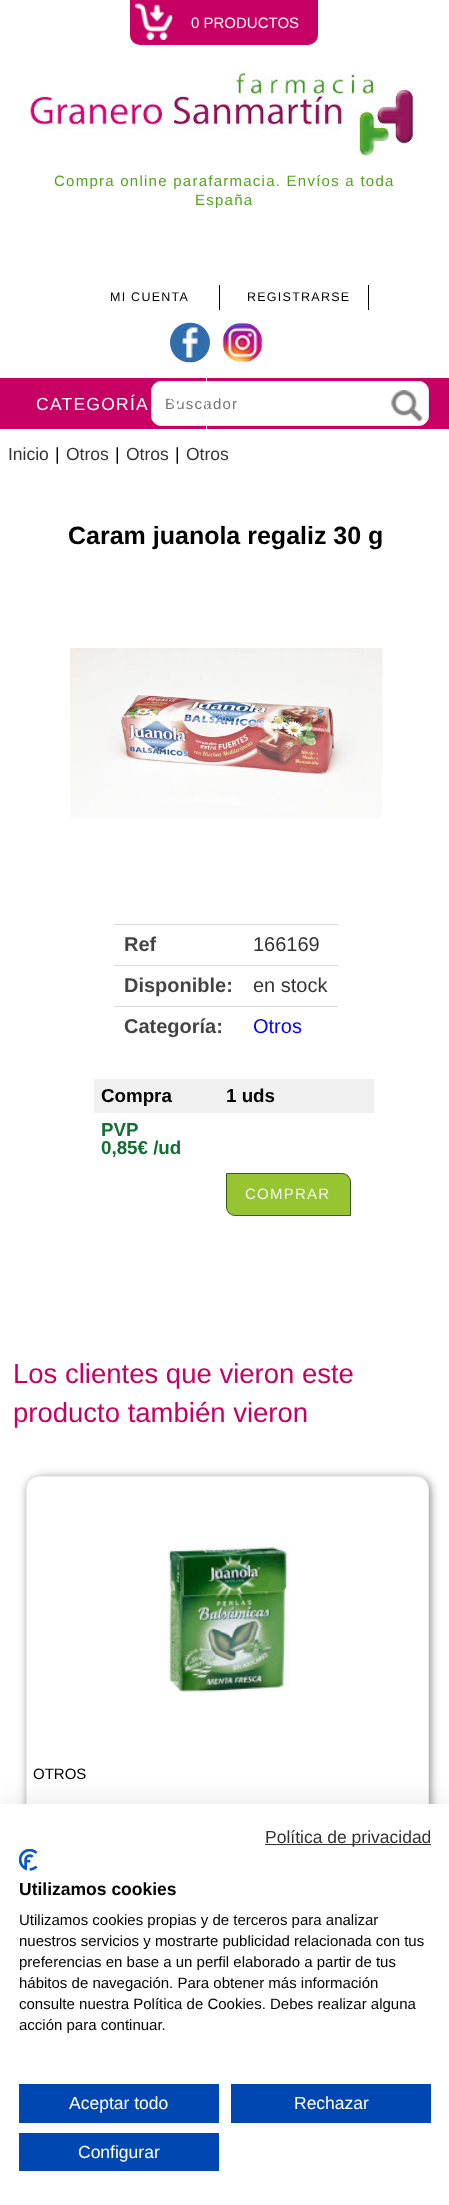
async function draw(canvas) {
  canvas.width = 449;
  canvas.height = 2205;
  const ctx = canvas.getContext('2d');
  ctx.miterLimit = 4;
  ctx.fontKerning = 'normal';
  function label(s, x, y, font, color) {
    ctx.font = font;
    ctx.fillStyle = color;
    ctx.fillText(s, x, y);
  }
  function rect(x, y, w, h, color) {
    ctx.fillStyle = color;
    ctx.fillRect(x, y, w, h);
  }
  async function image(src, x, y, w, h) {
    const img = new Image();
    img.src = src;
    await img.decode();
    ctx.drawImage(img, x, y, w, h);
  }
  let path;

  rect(0, 0, 449, 2205, '#fff');
  ctx.fillStyle = '#c70163';
  ctx.beginPath();
  ctx.roundRect(130, 0, 188, 45, [0, 0, 10, 10]);
  ctx.fill();
  await image('assets/img1.png', 135, 3, 38, 37);
  label('0 PRODUCTOS', 191, 28, '15px Liberation Sans', '#fff');
  await image('assets/img2.png', 30, 68, 388, 89);
  ctx.letterSpacing = '1.25px';
  label('Compra online parafarmacia. Envíos a toda', 54, 186, '15px Liberation Sans', '#54a420');
  label('España', 195, 205, '15px Liberation Sans', '#54a420');
  rect(219, 285, 1, 25, '#000');
  label('MI CUENTA', 110, 301, '12.5px Liberation Sans', '#000');
  rect(368, 285, 1, 25, '#000');
  label('REGISTRARSE', 247, 301, '12.5px Liberation Sans', '#000');
  await image('assets/img3.png', 170, 322, 40, 41);
  await image('assets/img4.png', 222, 322, 41, 41);
  rect(0, 378, 449, 51, '#c70163');
  ctx.fillStyle = '#fff';
  ctx.beginPath();
  ctx.roundRect(151.5, 381.5, 277, 44, 9.5);
  ctx.fill();
  ctx.strokeStyle = '#e8e8e8';
  ctx.stroke();
  label('Buscador', 165, 409, '15px Liberation Sans', '#757575');
  rect(206, 378, 1, 52, '#fff');
  label('CATEGORÍA', 36, 410, '17.5px Liberation Sans', '#fff');
  path = new Path2D('M170.5 399L178.5 407L176.5 408.5L168.5 400.5Z');
  ctx.fill(path);
  path = new Path2D('M175 407L183 399L184.5 400.5L176.5 408.5Z');
  ctx.fill(path);
  await image('assets/img5.png', 391, 390, 32, 32);
  ctx.letterSpacing = '0px';
  label('Inicio', 8, 460, '17.5px Liberation Sans', '#333');
  label('|', 55, 460, '17.5px Liberation Sans', '#000');
  label('Otros', 66, 460, '17.5px Liberation Sans', '#333');
  label('|', 115, 460, '17.5px Liberation Sans', '#000');
  label('Otros', 126, 460, '17.5px Liberation Sans', '#333');
  label('|', 175, 460, '17.5px Liberation Sans', '#000');
  label('Otros', 186, 460, '17.5px Liberation Sans', '#333');
  label('Caram juanola regaliz 30 g', 68, 544, 'bold 25px Liberation Sans', '#000');
  await image('assets/img6.png', 70, 648, 313, 170);
  rect(114, 924, 224, 1, '#ddd');
  label('Ref', 124, 951, 'bold 20px Liberation Sans', '#444');
  label('166169', 253, 951, '20px Liberation Sans', '#333');
  rect(114, 965, 224, 1, '#ddd');
  rect(114, 1006, 224, 1, '#ddd');
  label('Disponible:', 124, 992, 'bold 20px Liberation Sans', '#444');
  label('en stock', 253, 992, '20px Liberation Sans', '#333');
  label('Categoría:', 124, 1033, 'bold 20px Liberation Sans', '#444');
  label('Otros', 253, 1033, '20px Liberation Sans', '#00f');
  rect(94, 1079, 280, 34, '#f0f0f0');
  label('Compra', 101, 1102, 'bold 18.75px Liberation Sans', '#000');
  label('1 uds', 226, 1102, 'bold 18.75px Liberation Sans', '#000');
  label('PVP', 101, 1136, 'bold 18.75px Liberation Sans', '#136e33');
  label('0,85€ /ud', 101, 1154, 'bold 18.75px Liberation Sans', '#136e33');
  ctx.fillStyle = '#97c532';
  ctx.beginPath();
  ctx.roundRect(226.5, 1173.5, 124, 42, [0, 8.5, 0, 8.5]);
  ctx.fill();
  ctx.strokeStyle = '#365e13';
  ctx.stroke();
  ctx.letterSpacing = '1.25px';
  label('COMPRAR', 245, 1199, '15px Liberation Sans', '#f2f2f2');
  ctx.letterSpacing = '0px';
  label('Los clientes que vieron este', 13, 1383, '27.5px Liberation Sans', '#c70163');
  label('producto también vieron', 13, 1422, '27.5px Liberation Sans', '#c70163');
  ctx.fillStyle = '#00000080';
  ctx.filter = 'blur(5px)';
  ctx.beginPath();
  ctx.roundRect(28, 1478, 402, 508, 13);
  ctx.fill();
  ctx.filter = 'none';
  ctx.fillStyle = '#fff';
  ctx.beginPath();
  ctx.roundRect(26.5, 1476.5, 402, 508, 12.5);
  ctx.fill();
  ctx.strokeStyle = '#eee';
  ctx.stroke();
  await image('assets/img7.png', 168, 1546, 122, 146);
  label('OTROS', 33, 1779, '15px Liberation Sans', '#000');
  ctx.fillStyle = '#0000001a';
  ctx.filter = 'blur(15px)';
  ctx.beginPath();
  ctx.rect(0, 1804, 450, 401);
  ctx.fill();
  ctx.filter = 'none';
  rect(0, 1804, 449, 401, '#fff');
  rect(265, 1844, 166, 1, '#333');
  label('Política de privacidad', 265, 1843, '17.5px Liberation Sans', '#333');
  await image('assets/img8.png', 19, 1849, 19, 22);
  label('Utilizamos cookies', 19, 1895, 'bold 17.5px Liberation Sans', '#000');
  label('Utilizamos cookies propias y de terceros para analizar', 19, 1925, '15px Liberation Sans', '#000');
  label('nuestros servicios y mostrarte publicidad relacionada con tus', 19, 1946, '15px Liberation Sans', '#000');
  label('preferencias en base a un perfil elaborado a partir de tus', 19, 1967, '15px Liberation Sans', '#000');
  label('hábitos de navegación. Para obtener más información', 19, 1988, '15px Liberation Sans', '#000');
  label('consulte nuestra Política de Cookies. Debes realizar alguna', 19, 2009, '15px Liberation Sans', '#000');
  label('acción para continuar.', 19, 2030, '15px Liberation Sans', '#000');
  rect(19, 2084, 200, 39, '#0047b2');
  label('Aceptar todo', 69, 2109, '17.5px Liberation Sans', '#fff');
  rect(231, 2084, 200, 39, '#0047b2');
  label('Rechazar', 294, 2109, '17.5px Liberation Sans', '#fff');
  rect(19, 2133, 200, 38, '#0047b2');
  label('Configurar', 78, 2158, '17.5px Liberation Sans', '#fff');
}

draw(document.querySelector('canvas'));
